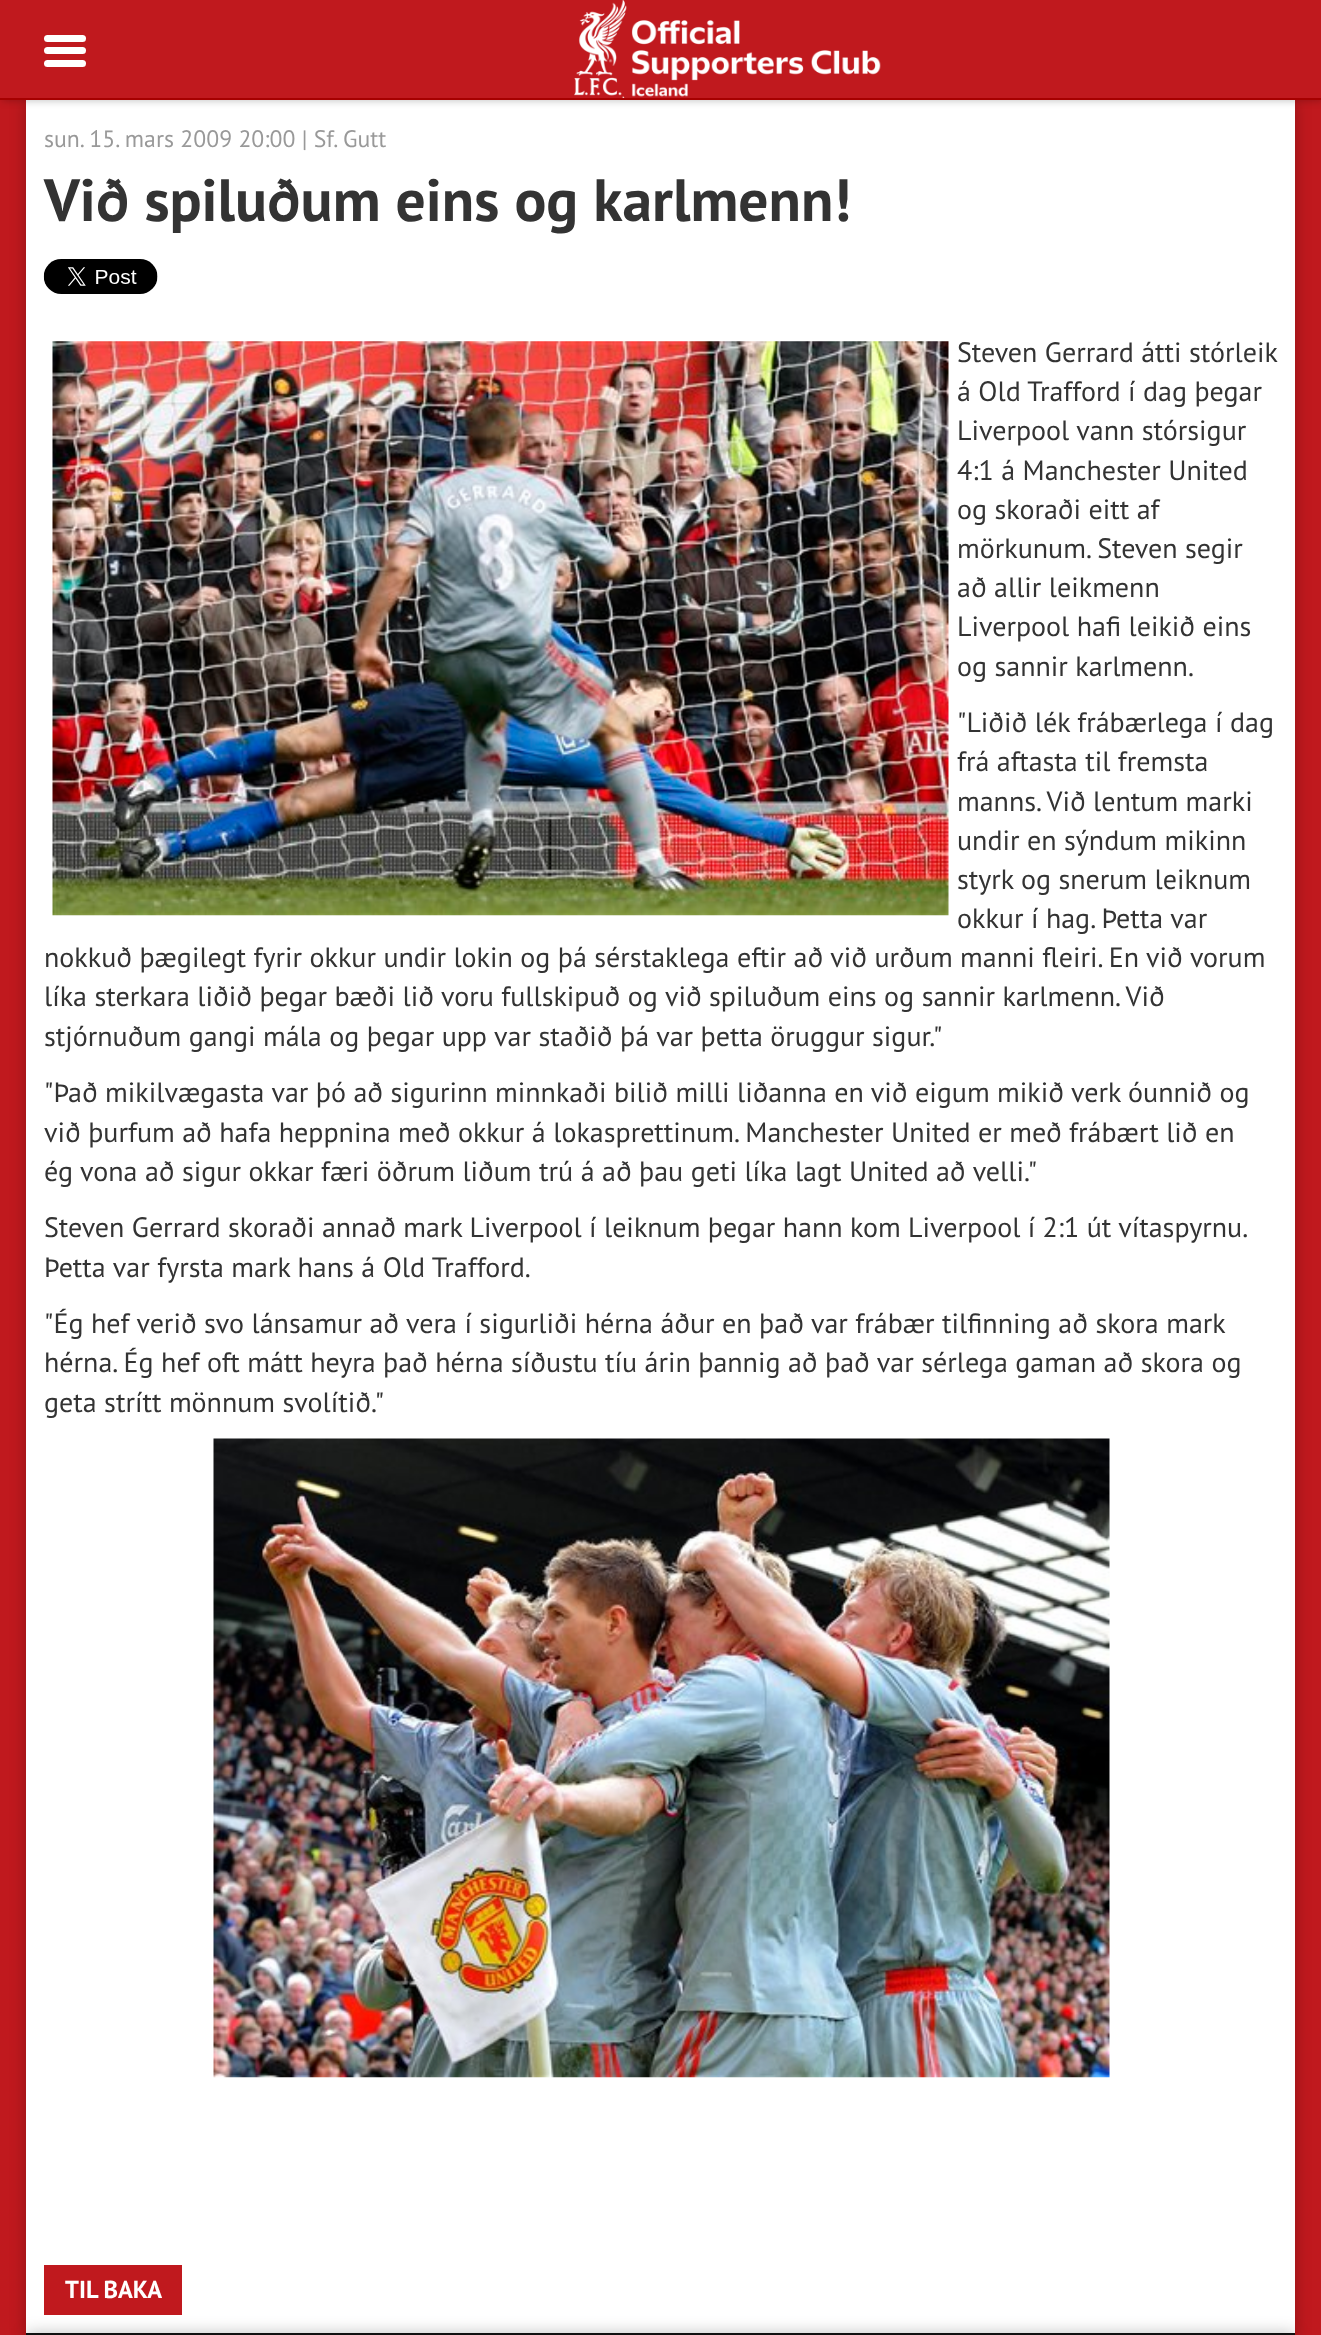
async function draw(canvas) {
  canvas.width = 1321;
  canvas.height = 2335;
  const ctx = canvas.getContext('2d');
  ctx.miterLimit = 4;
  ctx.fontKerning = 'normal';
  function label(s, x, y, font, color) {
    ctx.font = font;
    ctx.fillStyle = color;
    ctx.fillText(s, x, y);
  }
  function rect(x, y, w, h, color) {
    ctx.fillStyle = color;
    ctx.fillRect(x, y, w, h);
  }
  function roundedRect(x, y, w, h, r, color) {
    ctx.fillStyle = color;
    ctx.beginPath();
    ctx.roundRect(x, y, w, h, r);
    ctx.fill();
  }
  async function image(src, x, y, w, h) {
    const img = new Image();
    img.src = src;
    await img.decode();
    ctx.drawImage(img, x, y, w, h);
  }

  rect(0, 0, 1321, 2335, '#c0191e');
  ctx.fillStyle = '#00000040';
  ctx.filter = 'blur(8px)';
  ctx.beginPath();
  ctx.rect(26, 100, 1269, 2233);
  ctx.fill();
  ctx.filter = 'none';
  rect(26, 100, 1269, 2233, '#fff');
  ctx.fillStyle = '#00000045';
  ctx.filter = 'blur(4.5px)';
  ctx.beginPath();
  ctx.rect(2, 0, 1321, 100);
  ctx.fill();
  ctx.filter = 'none';
  rect(0, 0, 1321, 98, '#c0191e');
  rect(0, 98, 1321, 2, '#a60000');
  roundedRect(44, 35, 42, 7, 3.5, '#fff');
  roundedRect(44, 47, 42, 7, 3.5, '#fff');
  roundedRect(44, 60, 42, 7, 3.5, '#fff');
  await image('assets/img1.png', 574, 0, 307, 98);
  label('sun. 15. mars 2009 20:00 | Sf. Gutt', 44, 147, '23.75px PT Sans', '#999');
  label('Við spiluðum eins og karlmenn!', 44, 221, 'bold 59.5px PT Sans', '#333');
  await image('assets/img2.png', 43, 259, 115, 35);
  await image('assets/img3.png', 52, 341, 897, 575);
  label('Steven Gerrard átti stórleik', 957, 362, '28px PT Sans', '#333');
  label('á Old Trafford í dag þegar', 957, 401, '28px PT Sans', '#333');
  label('Liverpool vann stórsigur', 957, 440, '28px PT Sans', '#333');
  label('4:1 á Manchester United', 957, 480, '28px PT Sans', '#333');
  label('og skoraði eitt af', 957, 519, '28px PT Sans', '#333');
  label('mörkunum. Steven segir', 957, 558, '28px PT Sans', '#333');
  label('að allir leikmenn', 957, 597, '28px PT Sans', '#333');
  label('Liverpool hafi leikið eins', 957, 636, '28px PT Sans', '#333');
  label('og sannir karlmenn.', 957, 676, '28px PT Sans', '#333');
  label('"Liðið lék frábærlega í dag', 957, 732, '28px PT Sans', '#333');
  label('frá aftasta til fremsta', 957, 771, '28px PT Sans', '#333');
  label('manns. Við lentum marki', 957, 811, '28px PT Sans', '#333');
  label('undir en sýndum mikinn', 957, 850, '28px PT Sans', '#333');
  label('styrk og snerum leiknum', 957, 889, '28px PT Sans', '#333');
  label('okkur í hag. Þetta var', 957, 928, '28px PT Sans', '#333');
  label('nokkuð þægilegt fyrir okkur undir lokin og þá sérstaklega eftir að við urðum manni fleiri. En við vorum', 44, 967, '28px PT Sans', '#333');
  label('líka sterkara liðið þegar bæði lið voru fullskipuð og við spiluðum eins og sannir karlmenn. Við', 44, 1006, '28px PT Sans', '#333');
  label('stjórnuðum gangi mála og þegar upp var staðið þá var þetta öruggur sigur."', 44, 1046, '28px PT Sans', '#333');
  label('"Það mikilvægasta var þó að sigurinn minnkaði bilið milli liðanna en við eigum mikið verk óunnið og', 44, 1102, '28px PT Sans', '#333');
  label('við þurfum að hafa heppnina með okkur á lokasprettinum. Manchester United er með frábært lið en', 44, 1142, '28px PT Sans', '#333');
  label('ég vona að sigur okkar færi öðrum liðum trú á að þau geti líka lagt United að velli."', 44, 1181, '28px PT Sans', '#333');
  ctx.wordSpacing = '-0.1px';
  label('Steven Gerrard skoraði annað mark Liverpool í leiknum þegar hann kom Liverpool í 2:1 út vítaspyrnu.', 44, 1237, '28px PT Sans', '#333');
  ctx.wordSpacing = '0px';
  label('Þetta var fyrsta mark hans á Old Trafford.', 44, 1277, '28px PT Sans', '#333');
  label('"Ég hef verið svo lánsamur að vera í sigurliði hérna áður en það var frábær tilfinning að skora mark', 44, 1333, '28px PT Sans', '#333');
  label('hérna. Ég hef oft mátt heyra það hérna síðustu tíu árin þannig að það var sérlega gaman að skora og', 44, 1372, '28px PT Sans', '#333');
  label('geta strítt mönnum svolítið."', 44, 1412, '28px PT Sans', '#333');
  await image('assets/img4.png', 213, 1438, 897, 640);
  rect(44, 2265, 138, 50, '#c0191e');
  label('TIL BAKA', 65, 2298, 'bold 24.5px PT Sans', '#fff');
  ctx.fillStyle = '#00000040';
  ctx.filter = 'blur(8px)';
  ctx.beginPath();
  ctx.rect(26, 2333, 1269, 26);
  ctx.fill();
  ctx.filter = 'none';
  rect(26, 2333, 1269, 2, '#101010');
}

draw(document.querySelector('canvas'));
